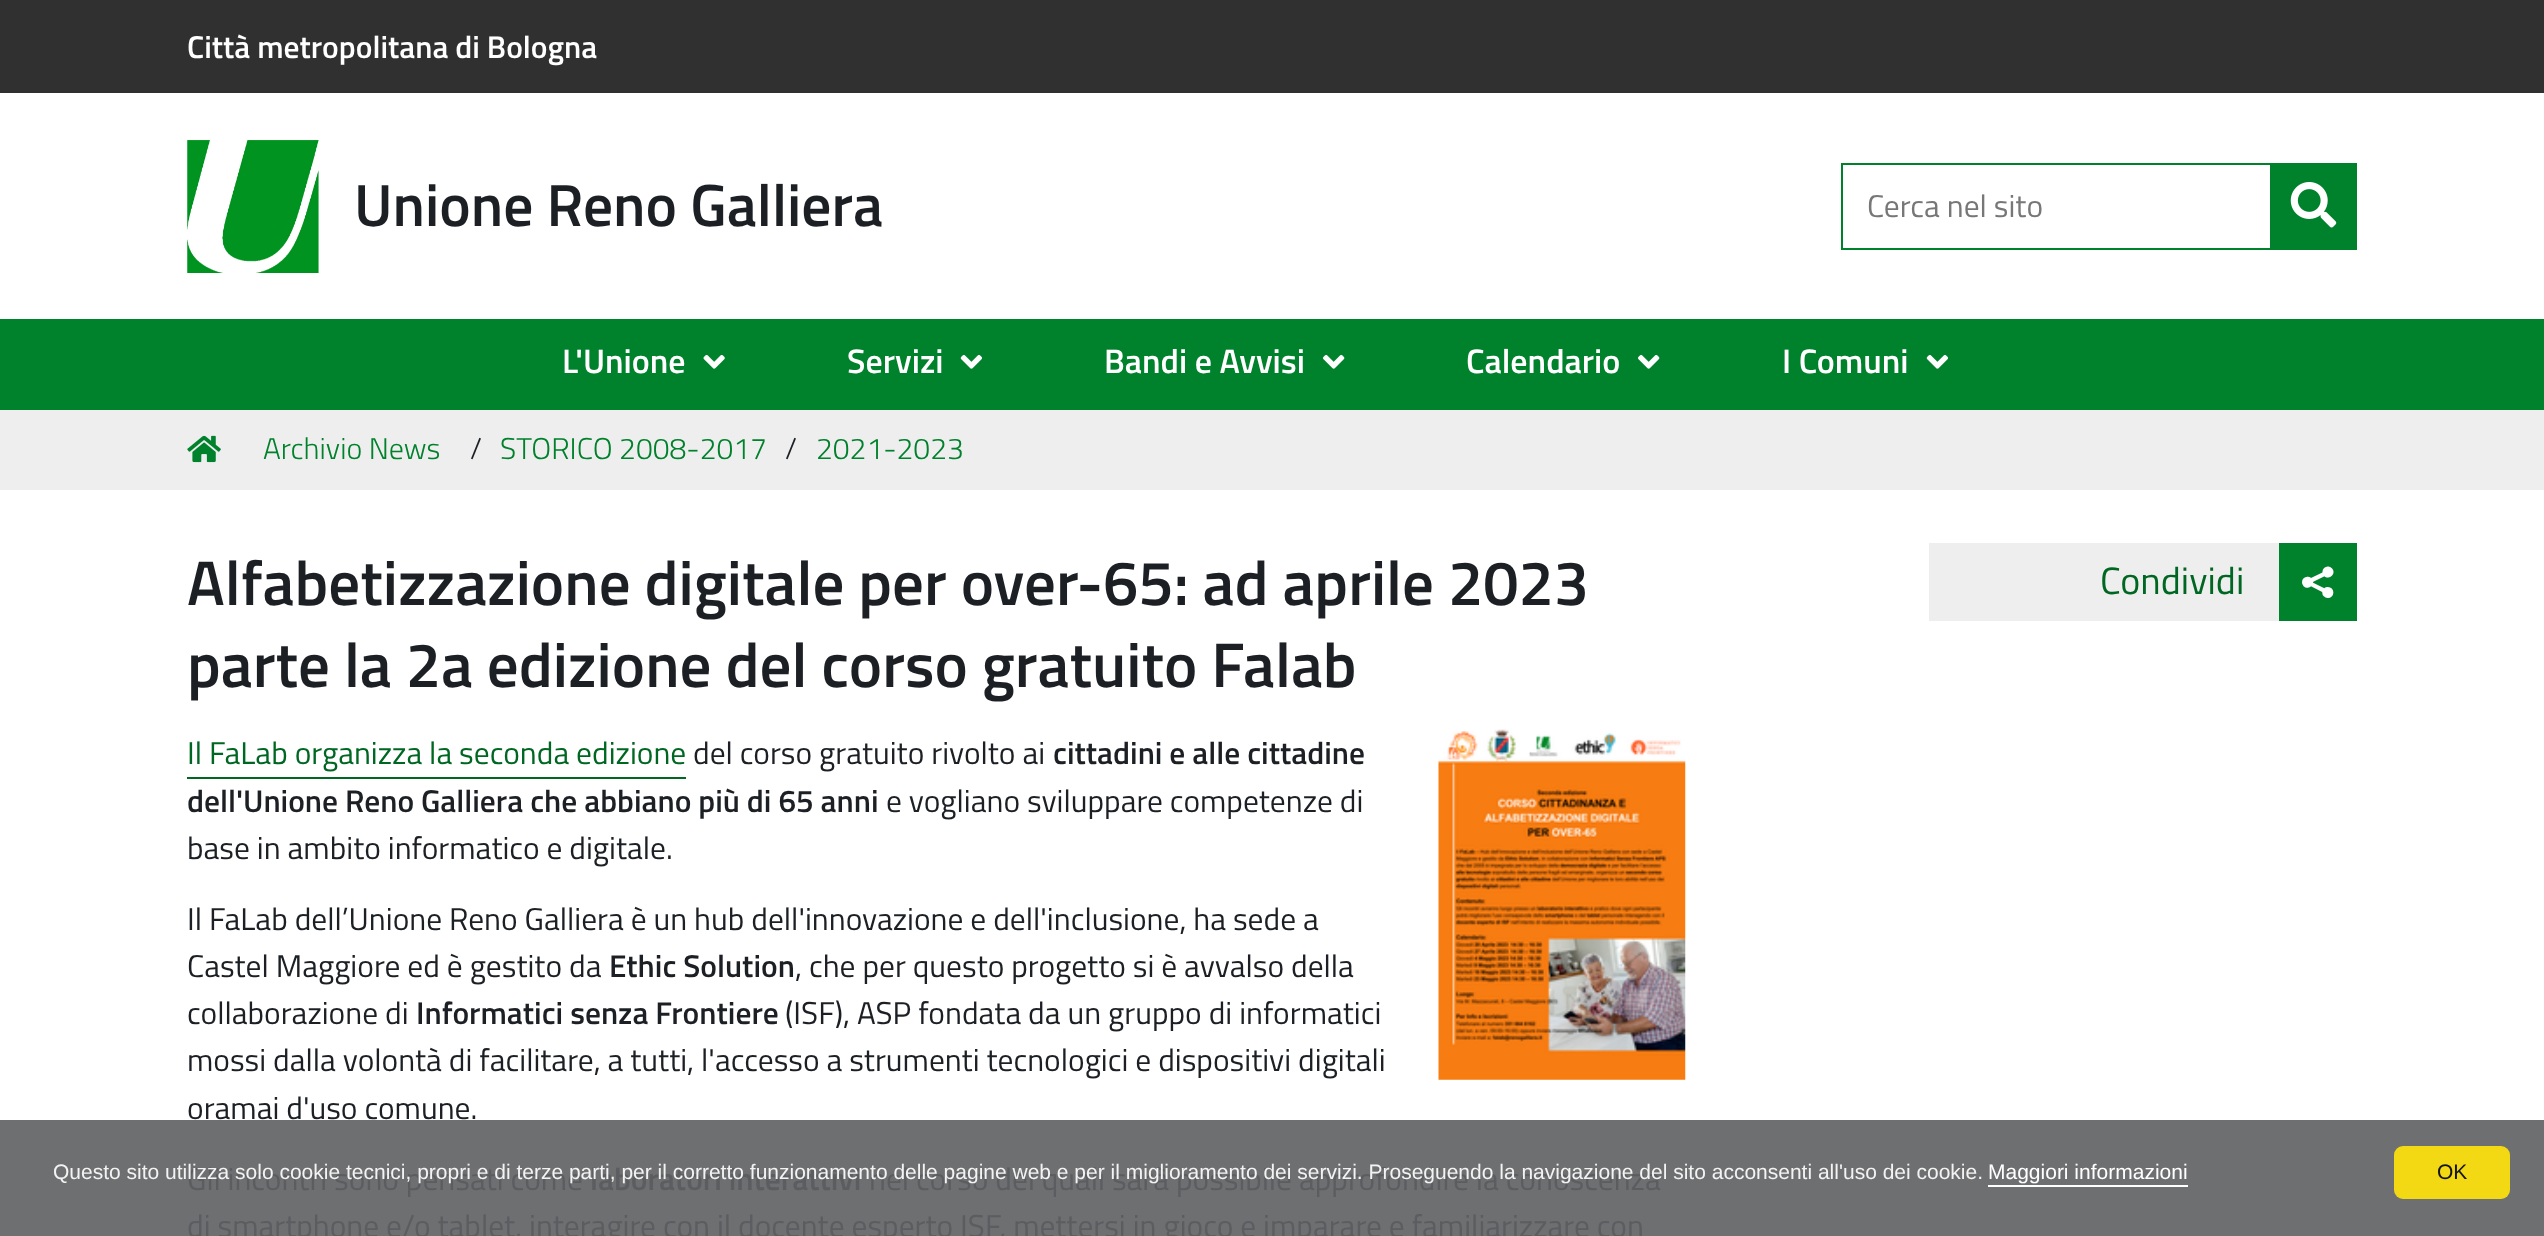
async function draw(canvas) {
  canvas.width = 2544;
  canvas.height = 1236;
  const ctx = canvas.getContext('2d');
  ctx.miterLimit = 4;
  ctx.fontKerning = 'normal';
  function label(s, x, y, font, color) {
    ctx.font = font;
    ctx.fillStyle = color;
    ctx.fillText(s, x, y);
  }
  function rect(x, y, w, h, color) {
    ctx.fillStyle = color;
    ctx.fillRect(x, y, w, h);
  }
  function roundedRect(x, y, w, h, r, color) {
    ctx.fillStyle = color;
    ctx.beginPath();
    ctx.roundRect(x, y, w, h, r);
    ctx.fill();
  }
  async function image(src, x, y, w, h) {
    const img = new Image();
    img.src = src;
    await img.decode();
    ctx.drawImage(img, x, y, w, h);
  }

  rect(0, 0, 2544, 1236, '#fff');
  rect(0, 1120, 2544, 116, '#6e6f71');
  rect(0, 0, 2544, 93, '#303030');
  label('Città metropolitana di Bologna', 187, 58, '600 31.5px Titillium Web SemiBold', '#fff');
  await image('assets/img1.png', 187, 140, 132, 133);
  label('Unione Reno Galliera', 354, 226, '600 59.5px Titillium Web SemiBold', '#1c2024');
  ctx.strokeStyle = '#00812c';
  ctx.lineWidth = 2;
  ctx.strokeRect(1842, 164, 436, 85);
  label('Cerca nel sito', 1867, 217, '31.5px Titillium Web', '#777');
  rect(2270, 163, 87, 87, '#00812c');
  await image('assets/img2.png', 2290, 182, 47, 46);
  rect(0, 319, 2544, 91, '#00812c');
  label('L\'Unione', 562, 373, '600 34px Titillium Web SemiBold', '#fff');
  await image('assets/img3.png', 703, 354, 22, 15);
  label('Servizi', 847, 373, '600 34px Titillium Web SemiBold', '#fff');
  await image('assets/img4.png', 960, 354, 22, 15);
  label('Bandi e Avvisi', 1104, 373, '600 34px Titillium Web SemiBold', '#fff');
  await image('assets/img5.png', 1323, 354, 22, 15);
  label('Calendario', 1466, 373, '600 34px Titillium Web SemiBold', '#fff');
  await image('assets/img5.png', 1638, 354, 22, 15);
  label('I Comuni', 1782, 373, '600 34px Titillium Web SemiBold', '#fff');
  await image('assets/img4.png', 1926, 354, 22, 15);
  rect(0, 410, 2544, 80, '#eee');
  await image('assets/img6.png', 187, 435, 34, 28);
  label('Archivio News', 263, 459, '300 30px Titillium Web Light', '#00812c');
  label('/', 470, 459, '300 30px Titillium Web Light', '#1c2024');
  label('STORICO 2008-2017', 500, 459, '300 30px Titillium Web Light', '#00812c');
  label('/', 785, 459, '300 30px Titillium Web Light', '#1c2024');
  label('2021-2023', 816, 459, '300 30px Titillium Web Light', '#00812c');
  label('Alfabetizzazione digitale per over-65: ad aprile 2023', 187, 605, '600 63px Titillium Web SemiBold', '#1c2024');
  label('parte la 2a edizione del corso gratuito Falab', 187, 687, '600 63px Titillium Web SemiBold', '#1c2024');
  await image('assets/img7.png', 1438, 729, 248, 351);
  label('Il FaLab organizza la seconda edizione', 187, 764, '31.5px Titillium Web', '#006723');
  rect(187, 777, 499, 2, '#006723');
  label('del corso gratuito rivolto ai', 693, 764, '31.5px Titillium Web', '#1c2024');
  label('cittadini e alle cittadine', 1053, 764, '600 31.5px Titillium Web SemiBold', '#1c2024');
  label('dell\'Unione Reno Galliera che abbiano più di 65 anni', 187, 812, '600 31.5px Titillium Web SemiBold', '#1c2024');
  label('e vogliano sviluppare competenze di', 886, 812, '31.5px Titillium Web', '#1c2024');
  label('base in ambito informatico e digitale.', 187, 859, '31.5px Titillium Web', '#1c2024');
  label('Il FaLab dell’Unione Reno Galliera è un hub dell\'innovazione e dell\'inclusione, ha sede a', 187, 930, '31.5px Titillium Web', '#1c2024');
  label('Castel Maggiore ed è gestito da', 187, 977, '31.5px Titillium Web', '#1c2024');
  label('Ethic Solution', 609, 977, '600 31.5px Titillium Web SemiBold', '#1c2024');
  label(', che per questo progetto si è avvalso della', 795, 977, '31.5px Titillium Web', '#1c2024');
  label('collaborazione di', 187, 1024, '31.5px Titillium Web', '#1c2024');
  label('Informatici senza Frontiere', 416, 1024, '600 31.5px Titillium Web SemiBold', '#1c2024');
  label('(ISF), ASP fondata da un gruppo di informatici', 785, 1024, '31.5px Titillium Web', '#1c2024');
  label('mossi dalla volontà di facilitare, a tutti, l\'accesso a strumenti tecnologici e dispositivi digitali', 187, 1071, '31.5px Titillium Web', '#1c2024');
  label('oramai d\'uso comune.', 187, 1119, '31.5px Titillium Web', '#1c2024');
  label('Gli incontri sono pensati come', 187, 1190, '31.5px Titillium Web', '#5b5d60');
  label('laboratori interattivi', 590, 1190, '600 31.5px Titillium Web SemiBold', '#5b5d60');
  label('nel corso dei quali sarà possibile approfondire la conoscenza', 869, 1190, '31.5px Titillium Web', '#5b5d60');
  label('di smartphone e/o tablet, interagire con il docente esperto ISF, mettersi in gioco e imparare e familiarizzare con', 187, 1237, '31.5px Titillium Web', '#5b5d60');
  rect(1929, 543, 350, 78, '#eee');
  label('Condividi', 2100, 594, '38px Titillium Web', '#006723');
  rect(2279, 543, 78, 78, '#00812c');
  label('📢', 2302, 596, '31.5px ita', '#fff');
  label('Questo sito utilizza solo cookie tecnici, propri e di terze parti, per il corretto funzionamento delle pagine web e per il miglioramento dei servizi. Proseguendo la navigazione del sito acconsenti all\'uso dei cookie.', 53, 1179, '21px Liberation Sans', '#f3f3f3');
  label('Maggiori informazioni', 1988, 1179, '21px Liberation Sans', '#fff');
  rect(1988, 1185, 200, 2, '#fff');
  roundedRect(2394, 1146, 116, 53, 9, '#f2d914');
  label('OK', 2437, 1179, '21px Liberation Sans', '#141414');
}

draw(document.querySelector('canvas'));
